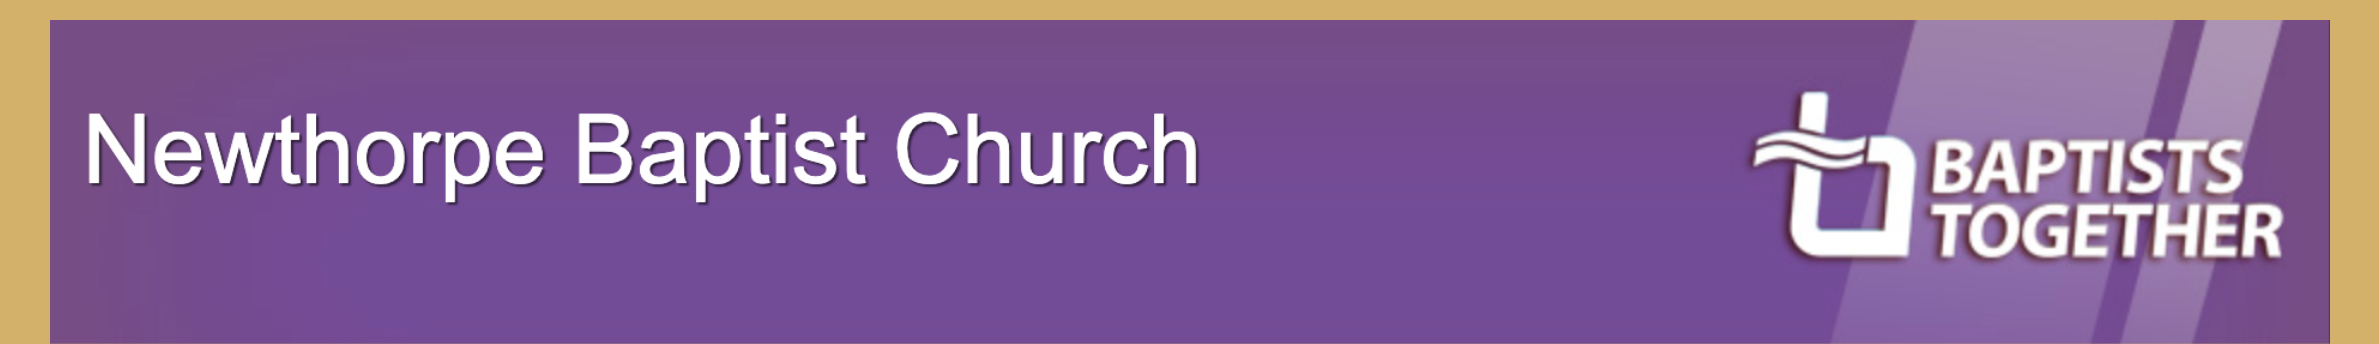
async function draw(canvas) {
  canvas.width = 2379;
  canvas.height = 344;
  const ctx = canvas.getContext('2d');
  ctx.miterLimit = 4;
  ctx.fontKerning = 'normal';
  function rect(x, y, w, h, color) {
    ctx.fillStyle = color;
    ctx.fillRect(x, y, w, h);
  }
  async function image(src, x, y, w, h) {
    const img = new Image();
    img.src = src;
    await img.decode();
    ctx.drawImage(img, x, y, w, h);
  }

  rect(0, 0, 2379, 344, '#d4b16a');
  await image('assets/img1.png', 50, 20, 2280, 324);
}

draw(document.querySelector('canvas'));
